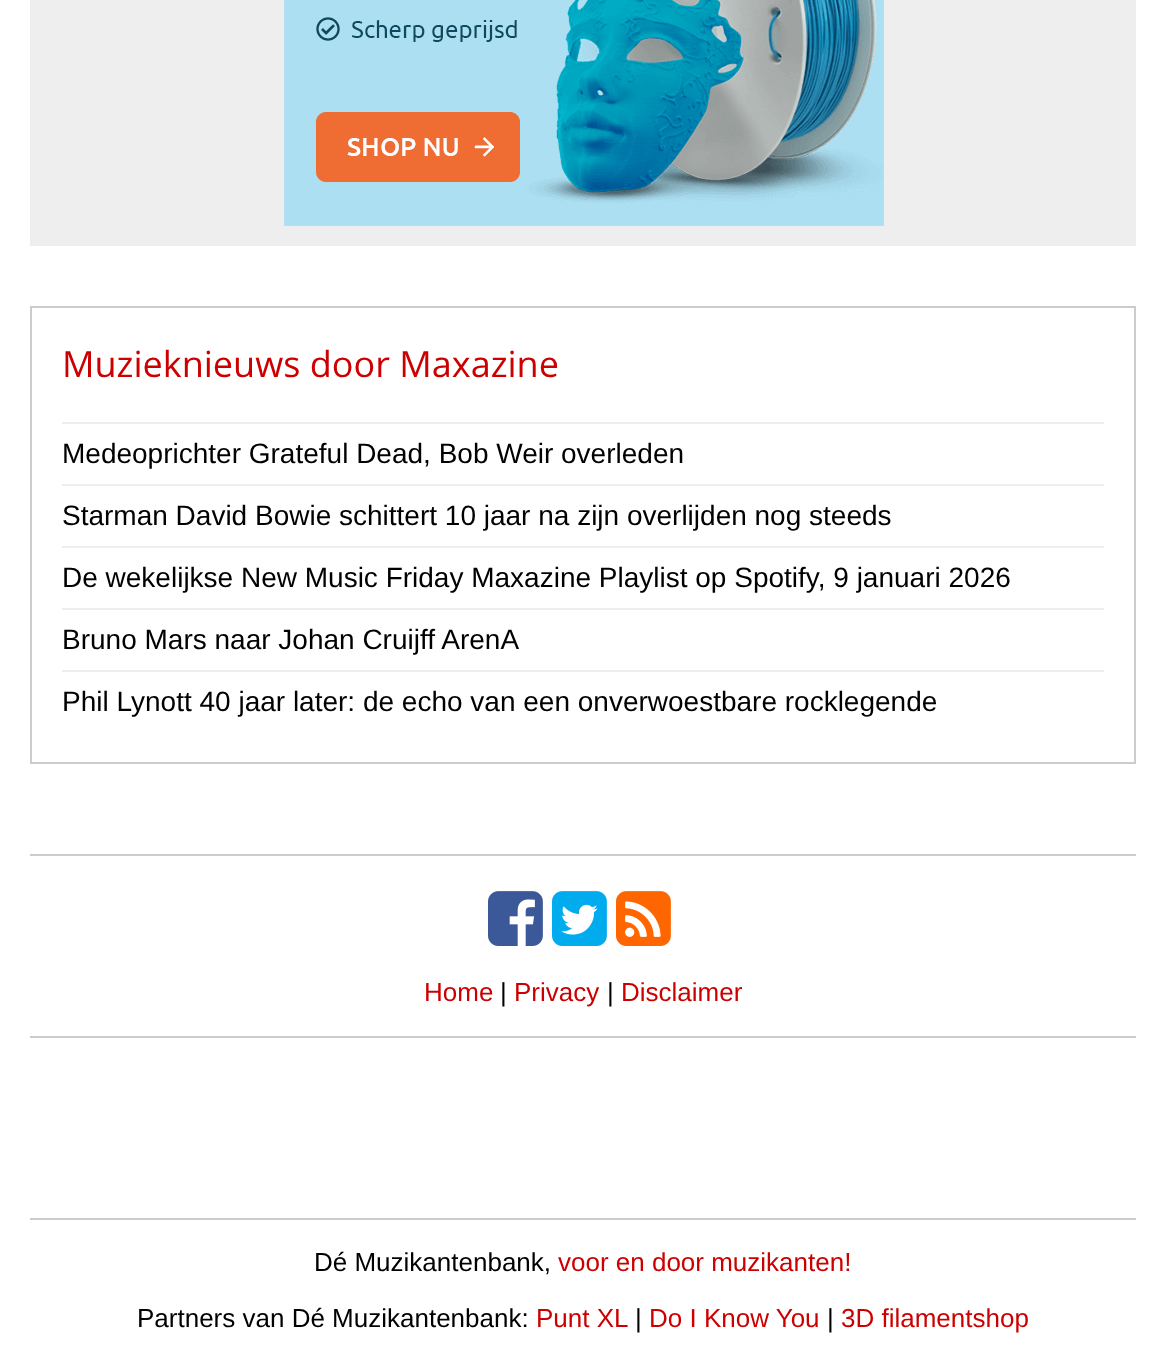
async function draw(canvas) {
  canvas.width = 1165;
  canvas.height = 1361;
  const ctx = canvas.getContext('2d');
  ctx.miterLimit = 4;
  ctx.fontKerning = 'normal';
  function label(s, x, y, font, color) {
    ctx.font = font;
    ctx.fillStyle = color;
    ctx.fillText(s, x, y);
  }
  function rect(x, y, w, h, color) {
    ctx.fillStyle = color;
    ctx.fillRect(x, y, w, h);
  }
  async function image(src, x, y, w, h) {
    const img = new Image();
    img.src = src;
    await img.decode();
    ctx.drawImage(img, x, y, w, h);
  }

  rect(0, 0, 1165, 1361, '#fff');
  rect(30, 0, 1106, 246, '#eee');
  await image('assets/img1.png', 284, 0, 600, 226);
  ctx.strokeStyle = '#ccc';
  ctx.lineWidth = 2;
  ctx.strokeRect(31, 307, 1104, 456);
  label('Muzieknieuws door Maxazine', 62, 377, '36px Open Sans', '#c00');
  rect(62, 422, 1042, 2, '#eee');
  label('Medeoprichter Grateful Dead, Bob Weir overleden', 62, 463, '28px Liberation Sans', '#000');
  rect(62, 484, 1042, 2, '#eee');
  label('Starman David Bowie schittert 10 jaar na zijn overlijden nog steeds', 62, 525, '28px Liberation Sans', '#000');
  rect(62, 546, 1042, 2, '#eee');
  label('De wekelijkse New Music Friday Maxazine Playlist op Spotify, 9 januari 2026', 62, 587, '28px Liberation Sans', '#000');
  rect(62, 608, 1042, 2, '#eee');
  label('Bruno Mars naar Johan Cruijff ArenA', 62, 649, '28px Liberation Sans', '#000');
  rect(62, 670, 1042, 2, '#eee');
  label('Phil Lynott 40 jaar later: de echo van een onverwoestbare rocklegende', 62, 711, '28px Liberation Sans', '#000');
  rect(30, 854, 1106, 2, '#ccc');
  await image('assets/img2.png', 488, 891, 55, 55);
  await image('assets/img3.png', 552, 891, 55, 55);
  await image('assets/img4.png', 616, 891, 55, 55);
  label('Home', 424, 1001, '26px Liberation Sans', '#c00');
  label('|', 500, 1001, '26px Liberation Sans', '#000');
  label('Privacy', 514, 1001, '26px Liberation Sans', '#c00');
  label('|', 607, 1001, '26px Liberation Sans', '#000');
  label('Disclaimer', 621, 1001, '26px Liberation Sans', '#c00');
  rect(30, 1036, 1106, 2, '#ccc');
  rect(30, 1218, 1106, 2, '#ccc');
  label('Dé Muzikantenbank,', 314, 1271, '26px Liberation Sans', '#000');
  label('voor en door muzikanten!', 558, 1271, '26px Liberation Sans', '#c00');
  label('Partners van Dé Muzikantenbank:', 137, 1327, '26px Liberation Sans', '#000');
  label('Punt XL', 536, 1327, '26px Liberation Sans', '#c00');
  label('|', 635, 1327, '26px Liberation Sans', '#000');
  label('Do I Know You', 649, 1327, '26px Liberation Sans', '#c00');
  label('|', 827, 1327, '26px Liberation Sans', '#000');
  label('3D filamentshop', 841, 1327, '26px Liberation Sans', '#c00');
}

draw(document.querySelector('canvas'));
